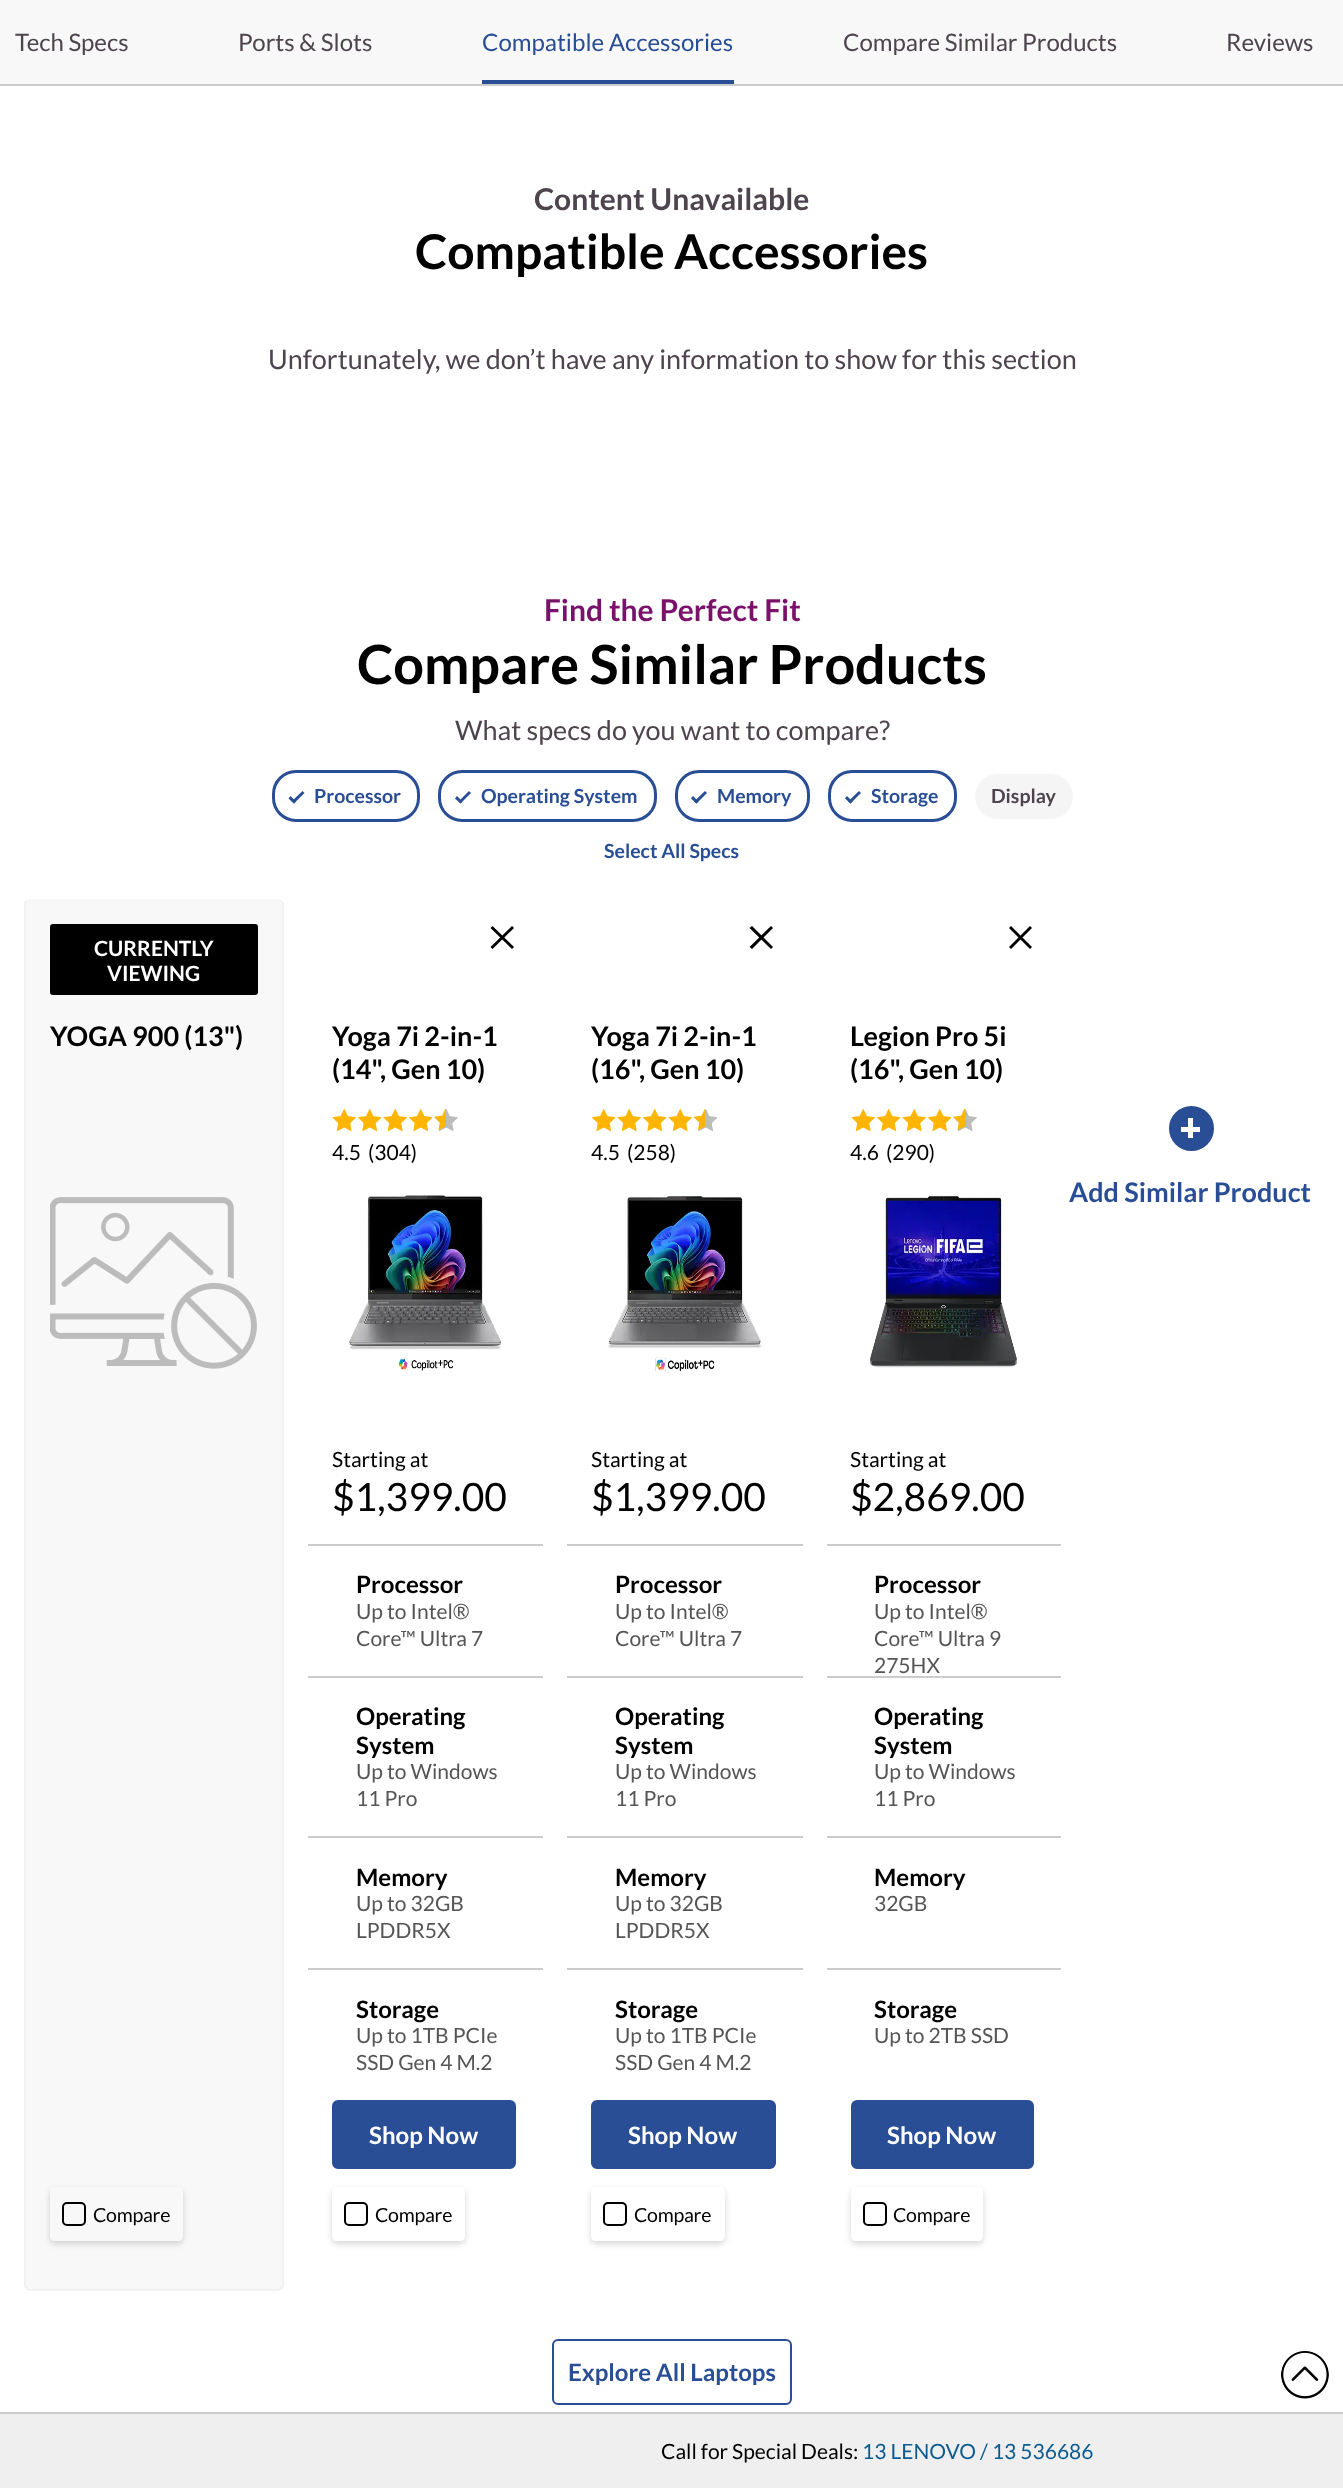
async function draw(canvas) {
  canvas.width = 1343;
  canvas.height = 2488;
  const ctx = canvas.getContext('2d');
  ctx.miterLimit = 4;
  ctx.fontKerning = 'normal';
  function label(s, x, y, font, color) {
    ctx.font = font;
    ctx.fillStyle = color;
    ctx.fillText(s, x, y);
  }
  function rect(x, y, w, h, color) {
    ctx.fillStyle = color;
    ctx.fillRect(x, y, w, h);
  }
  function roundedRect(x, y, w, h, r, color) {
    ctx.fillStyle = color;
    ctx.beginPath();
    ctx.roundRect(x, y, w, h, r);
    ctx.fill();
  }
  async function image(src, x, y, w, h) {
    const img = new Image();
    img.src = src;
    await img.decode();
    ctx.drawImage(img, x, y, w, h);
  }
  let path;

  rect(0, 0, 1343, 2488, '#fff');
  rect(0, 0, 1343, 84, '#f8f8f8');
  rect(0, 84, 1343, 2, '#ccc');
  label('Tech Specs', 15, 51, '24px Lato', '#4e444e');
  label('Ports & Slots', 238, 51, '24px Lato', '#4e444e');
  rect(482, 80, 252, 4, '#294e95');
  label('Compatible Accessories', 482, 51, '24px Lato', '#294e95');
  label('Compare Similar Products', 843, 51, '24px Lato', '#4e444e');
  label('Reviews', 1226, 51, '24px Lato', '#4e444e');
  label('Content Unavailable', 534, 210, 'bold 30px Lato', '#4e444e');
  label('Compatible Accessories', 415, 269, 'bold 48px Lato', '#000');
  label('Unfortunately, we don’t have any information to show for this section', 268, 369, '27px Lato', '#4e444e');
  label('Find the Perfect Fit', 544, 621, 'bold 30px Lato', '#7a126b');
  label('Compare Similar Products', 357, 684, 'bold 54px Lato', '#000');
  label('What specs do you want to compare?', 455, 740, '27px Lato', '#4e444e');
  ctx.beginPath();
  ctx.roundRect(273.5, 771.5, 145, 49, 22.5);
  ctx.strokeStyle = '#294e95';
  ctx.lineWidth = 3;
  ctx.stroke();
  ctx.fillStyle = '#294e95';
  path = new Path2D('M304.5 793L294 803.5L291.5 801.5L302.5 791Z');
  ctx.fill(path);
  path = new Path2D('M296 801.5L294 803.5L288.5 798.5L290.5 796Z');
  ctx.fill(path);
  label('Processor', 314, 803, 'bold 19.5px Lato', '#294e95');
  ctx.beginPath();
  ctx.roundRect(439.5, 771.5, 216, 49, 22.5);
  ctx.stroke();
  path = new Path2D('M471 793L460.5 803.5L458.5 801.5L469 791Z');
  ctx.fill(path);
  path = new Path2D('M462.5 801.5L460.5 803.5L455 798.5L457 796Z');
  ctx.fill(path);
  label('Operating System', 481, 803, 'bold 19.5px Lato', '#294e95');
  ctx.beginPath();
  ctx.roundRect(676.5, 771.5, 132, 49, 22.5);
  ctx.stroke();
  path = new Path2D('M707 793L696.5 803.5L694 801.5L705 791Z');
  ctx.fill(path);
  path = new Path2D('M698.5 801.5L696.5 803.5L691 798.5L693 796Z');
  ctx.fill(path);
  label('Memory', 717, 803, 'bold 19.5px Lato', '#294e95');
  ctx.beginPath();
  ctx.roundRect(829.5, 771.5, 126, 49, 22.5);
  ctx.stroke();
  path = new Path2D('M861 793L850.5 803.5L848 801.5L859 791Z');
  ctx.fill(path);
  path = new Path2D('M852.5 801.5L850.5 803.5L845 798.5L847 796Z');
  ctx.fill(path);
  label('Storage', 871, 803, 'bold 19.5px Lato', '#294e95');
  roundedRect(975, 774, 98, 45, 22.5, '#f5f5f5');
  label('Display', 991, 803, 'bold 19.5px Lato', '#4e444e');
  label('Select All Specs', 604, 858, 'bold 19.5px Lato', '#294e95');
  roundedRect(24, 899, 260, 1392, 6, '#f8f8f8');
  path = new Path2D('M281 901C282 902 283 903 283 904.5V2284.5C283 2286 282 2287 281 2288C280 2289 279 2290 277.5 2290H30C28.5 2290 27.5 2289 26.5 2288C25.5 2287 25 2286 25 2284.5V904.5C25 903 25.5 902 26.5 901');
  ctx.strokeStyle = '#efefef';
  ctx.lineWidth = 1.5;
  ctx.stroke(path);
  roundedRect(50, 924, 208, 71, 3, '#000');
  label('CURRENTLY', 94, 956, 'bold 21px Lato', '#fff');
  label('VIEWING', 107, 981, 'bold 21px Lato', '#fff');
  label('YOGA 900 (13")', 50, 1046, 'bold 27px Lato', '#000');
  await image('assets/img1.png', 50, 1197, 207, 172);
  ctx.save();
  path = new Path2D('M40 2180H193V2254H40ZM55 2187H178C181 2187 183 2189 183 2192V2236C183 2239 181 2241 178 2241H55C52 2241 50 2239 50 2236V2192C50 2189 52 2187 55 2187Z');
  ctx.clip(path, 'evenodd');
  ctx.fillStyle = '#00000029';
  ctx.filter = 'blur(3px)';
  ctx.beginPath();
  ctx.roundRect(50, 2190, 133, 54, 5);
  ctx.fill();
  ctx.filter = 'none';
  ctx.restore();
  ctx.beginPath();
  ctx.roundRect(63, 2203, 22, 22, 4);
  ctx.strokeStyle = '#000';
  ctx.lineWidth = 2;
  ctx.stroke();
  ctx.letterSpacing = '-0.25px';
  label('Compare', 93, 2222, '19.5px Lato', '#000');
  path = new Path2D('M512 926L514 928L492.5 949L490.5 947Z');
  ctx.fill(path);
  path = new Path2D('M490.5 928L492.5 926L514 947L512 949Z');
  ctx.fill(path);
  ctx.letterSpacing = '0px';
  label('Yoga 7i 2-in-1', 332, 1046, 'bold 27px Lato', '#000');
  label('(14", Gen 10)', 332, 1079, 'bold 27px Lato', '#000');
  await image('assets/img2.png', 332, 1109, 24, 23);
  await image('assets/img3.png', 357, 1109, 24, 23);
  await image('assets/img2.png', 383, 1109, 24, 23);
  await image('assets/img3.png', 408, 1109, 24, 23);
  await image('assets/img4.png', 434, 1109, 24, 23);
  await image('assets/img5.png', 434, 1109, 12, 22);
  label('4.5', 332, 1160, '21px Lato', '#000');
  label('(304)', 368, 1160, '21px Lato', '#000');
  await image('assets/img6.png', 349, 1195, 152, 176);
  label('Starting at', 332, 1467, '21px Lato', '#000');
  label('$1,399.00', 332, 1511, '39px Lato', '#000');
  rect(308, 1544, 235, 2, '#ccc');
  label('Processor', 356, 1593, 'bold 24px Lato', '#000');
  label('Up to Intel®', 356, 1619, '21px Lato', '#555');
  label('Core™ Ultra 7', 356, 1646, '21px Lato', '#555');
  rect(308, 1676, 235, 2, '#ccc');
  label('Operating', 356, 1725, 'bold 24px Lato', '#000');
  label('System', 356, 1754, 'bold 24px Lato', '#000');
  label('Up to Windows', 356, 1779, '21px Lato', '#555');
  label('11 Pro', 356, 1806, '21px Lato', '#555');
  rect(308, 1836, 235, 2, '#ccc');
  label('Memory', 356, 1886, 'bold 24px Lato', '#000');
  label('Up to 32GB', 356, 1911, '21px Lato', '#555');
  label('LPDDR5X', 356, 1938, '21px Lato', '#555');
  rect(308, 1968, 235, 2, '#ccc');
  label('Storage', 356, 2018, 'bold 24px Lato', '#000');
  label('Up to 1TB PCIe', 356, 2043, '21px Lato', '#555');
  label('SSD Gen 4 M.2', 356, 2070, '21px Lato', '#555');
  ctx.fillStyle = '#294e95';
  ctx.beginPath();
  ctx.roundRect(333, 2101, 182, 67, 5);
  ctx.fill();
  ctx.strokeStyle = '#294e95';
  ctx.stroke();
  label('Shop Now', 369, 2144, 'bold 24px Lato', '#fff');
  ctx.save();
  path = new Path2D('M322 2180H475V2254H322ZM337 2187H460C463 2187 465 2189 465 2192V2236C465 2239 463 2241 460 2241H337C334 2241 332 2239 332 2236V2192C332 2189 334 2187 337 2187Z');
  ctx.clip(path, 'evenodd');
  ctx.fillStyle = '#00000029';
  ctx.filter = 'blur(3px)';
  ctx.beginPath();
  ctx.roundRect(332, 2190, 133, 54, 5);
  ctx.fill();
  ctx.filter = 'none';
  ctx.restore();
  ctx.beginPath();
  ctx.roundRect(345, 2203, 22, 22, 4);
  ctx.strokeStyle = '#000';
  ctx.stroke();
  ctx.letterSpacing = '-0.25px';
  label('Compare', 375, 2222, '19.5px Lato', '#000');
  path = new Path2D('M771 926L773 928L752 949L749.5 947Z');
  ctx.fill(path);
  path = new Path2D('M749.5 928L752 926L773 947L771 949Z');
  ctx.fill(path);
  ctx.letterSpacing = '0px';
  label('Yoga 7i 2-in-1', 591, 1046, 'bold 27px Lato', '#000');
  label('(16", Gen 10)', 591, 1079, 'bold 27px Lato', '#000');
  await image('assets/img3.png', 591, 1109, 24, 23);
  await image('assets/img2.png', 617, 1109, 24, 23);
  await image('assets/img3.png', 642, 1109, 24, 23);
  await image('assets/img2.png', 668, 1109, 24, 23);
  await image('assets/img7.png', 693, 1109, 24, 23);
  await image('assets/img8.png', 693, 1109, 12, 22);
  label('4.5', 591, 1160, '21px Lato', '#000');
  label('(258)', 627, 1160, '21px Lato', '#000');
  await image('assets/img9.png', 608, 1196, 154, 176);
  label('Starting at', 591, 1467, '21px Lato', '#000');
  label('$1,399.00', 591, 1511, '39px Lato', '#000');
  rect(567, 1544, 236, 2, '#ccc');
  label('Processor', 615, 1593, 'bold 24px Lato', '#000');
  label('Up to Intel®', 615, 1619, '21px Lato', '#555');
  label('Core™ Ultra 7', 615, 1646, '21px Lato', '#555');
  rect(567, 1676, 236, 2, '#ccc');
  label('Operating', 615, 1725, 'bold 24px Lato', '#000');
  label('System', 615, 1754, 'bold 24px Lato', '#000');
  label('Up to Windows', 615, 1779, '21px Lato', '#555');
  label('11 Pro', 615, 1806, '21px Lato', '#555');
  rect(567, 1836, 236, 2, '#ccc');
  label('Memory', 615, 1886, 'bold 24px Lato', '#000');
  label('Up to 32GB', 615, 1911, '21px Lato', '#555');
  label('LPDDR5X', 615, 1938, '21px Lato', '#555');
  rect(567, 1968, 236, 2, '#ccc');
  label('Storage', 615, 2018, 'bold 24px Lato', '#000');
  label('Up to 1TB PCIe', 615, 2043, '21px Lato', '#555');
  label('SSD Gen 4 M.2', 615, 2070, '21px Lato', '#555');
  ctx.fillStyle = '#294e95';
  ctx.beginPath();
  ctx.roundRect(592, 2101, 183, 67, 5);
  ctx.fill();
  ctx.strokeStyle = '#294e95';
  ctx.stroke();
  label('Shop Now', 628, 2144, 'bold 24px Lato', '#fff');
  ctx.save();
  path = new Path2D('M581 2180H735V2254H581ZM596 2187H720C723 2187 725 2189 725 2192V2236C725 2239 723 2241 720 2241H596C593 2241 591 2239 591 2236V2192C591 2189 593 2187 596 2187Z');
  ctx.clip(path, 'evenodd');
  ctx.fillStyle = '#00000029';
  ctx.filter = 'blur(3px)';
  ctx.beginPath();
  ctx.roundRect(591, 2190, 134, 54, 5);
  ctx.fill();
  ctx.filter = 'none';
  ctx.restore();
  ctx.beginPath();
  ctx.roundRect(604, 2203, 22, 22, 4);
  ctx.strokeStyle = '#000';
  ctx.stroke();
  ctx.letterSpacing = '-0.25px';
  label('Compare', 634, 2222, '19.5px Lato', '#000');
  path = new Path2D('M1030 926L1032 928L1011 949L1009 947Z');
  ctx.fill(path);
  path = new Path2D('M1009 928L1011 926L1032 947L1030 949Z');
  ctx.fill(path);
  ctx.letterSpacing = '0px';
  label('Legion Pro 5i', 850, 1046, 'bold 27px Lato', '#000');
  label('(16", Gen 10)', 850, 1079, 'bold 27px Lato', '#000');
  await image('assets/img2.png', 851, 1109, 24, 23);
  await image('assets/img3.png', 876, 1109, 24, 23);
  await image('assets/img2.png', 902, 1109, 24, 23);
  await image('assets/img3.png', 927, 1109, 24, 23);
  await image('assets/img4.png', 953, 1109, 24, 23);
  await image('assets/img10.png', 953, 1109, 13, 22);
  label('4.6', 850, 1160, '21px Lato', '#000');
  label('(290)', 886, 1160, '21px Lato', '#000');
  await image('assets/img11.png', 870, 1195, 147, 173);
  label('Starting at', 850, 1467, '21px Lato', '#000');
  label('$2,869.00', 850, 1511, '39px Lato', '#000');
  rect(827, 1544, 234, 2, '#ccc');
  label('Processor', 874, 1593, 'bold 24px Lato', '#000');
  label('Up to Intel®', 874, 1619, '21px Lato', '#555');
  label('Core™ Ultra 9', 874, 1646, '21px Lato', '#555');
  label('275HX', 874, 1673, '21px Lato', '#555');
  rect(827, 1676, 234, 2, '#ccc');
  label('Operating', 874, 1725, 'bold 24px Lato', '#000');
  label('System', 874, 1754, 'bold 24px Lato', '#000');
  label('Up to Windows', 874, 1779, '21px Lato', '#555');
  label('11 Pro', 874, 1806, '21px Lato', '#555');
  rect(827, 1836, 234, 2, '#ccc');
  label('Memory', 874, 1886, 'bold 24px Lato', '#000');
  label('32GB', 874, 1911, '21px Lato', '#555');
  rect(827, 1968, 234, 2, '#ccc');
  label('Storage', 874, 2018, 'bold 24px Lato', '#000');
  label('Up to 2TB SSD', 874, 2043, '21px Lato', '#555');
  ctx.fillStyle = '#294e95';
  ctx.beginPath();
  ctx.roundRect(852, 2101, 181, 67, 5);
  ctx.fill();
  ctx.strokeStyle = '#294e95';
  ctx.stroke();
  label('Shop Now', 887, 2144, 'bold 24px Lato', '#fff');
  ctx.save();
  path = new Path2D('M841 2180H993V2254H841ZM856 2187H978C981 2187 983 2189 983 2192V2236C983 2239 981 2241 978 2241H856C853 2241 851 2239 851 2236V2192C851 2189 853 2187 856 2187Z');
  ctx.clip(path, 'evenodd');
  ctx.fillStyle = '#00000029';
  ctx.filter = 'blur(3px)';
  ctx.beginPath();
  ctx.roundRect(851, 2190, 132, 54, 5);
  ctx.fill();
  ctx.filter = 'none';
  ctx.restore();
  ctx.beginPath();
  ctx.roundRect(864, 2203, 22, 22, 4);
  ctx.strokeStyle = '#000';
  ctx.stroke();
  ctx.letterSpacing = '-0.25px';
  label('Compare', 893, 2222, '19.5px Lato', '#000');
  ctx.fillStyle = '#294e95';
  ctx.beginPath();
  ctx.arc(1191.5, 1128.5, 21, 0, 2 * Math.PI);
  ctx.fill();
  ctx.strokeStyle = '#294e95';
  ctx.lineWidth = 3;
  ctx.stroke();
  rect(1181, 1127, 19, 5, '#fff');
  rect(1188, 1118, 5, 20, '#fff');
  ctx.letterSpacing = '0px';
  label('Add Similar Product', 1069, 1202, 'bold 27px Lato', '#294e95');
  ctx.beginPath();
  ctx.roundRect(553, 2340, 238, 64, 5);
  ctx.lineWidth = 2;
  ctx.stroke();
  label('Explore All Laptops', 568, 2381, 'bold 24px Lato', '#294e95');
  rect(0, 2414, 1343, 74, '#efefef');
  rect(0, 2412, 1343, 2, '#ccc');
  await image('assets/img12.png', 1281, 2351, 48, 48);
  label('Call for Special Deals:', 661, 2459, '21px Lato', '#000');
  label('13 LENOVO / 13 536686', 862, 2459, '21px Lato', '#0d5c91');
}

draw(document.querySelector('canvas'));
